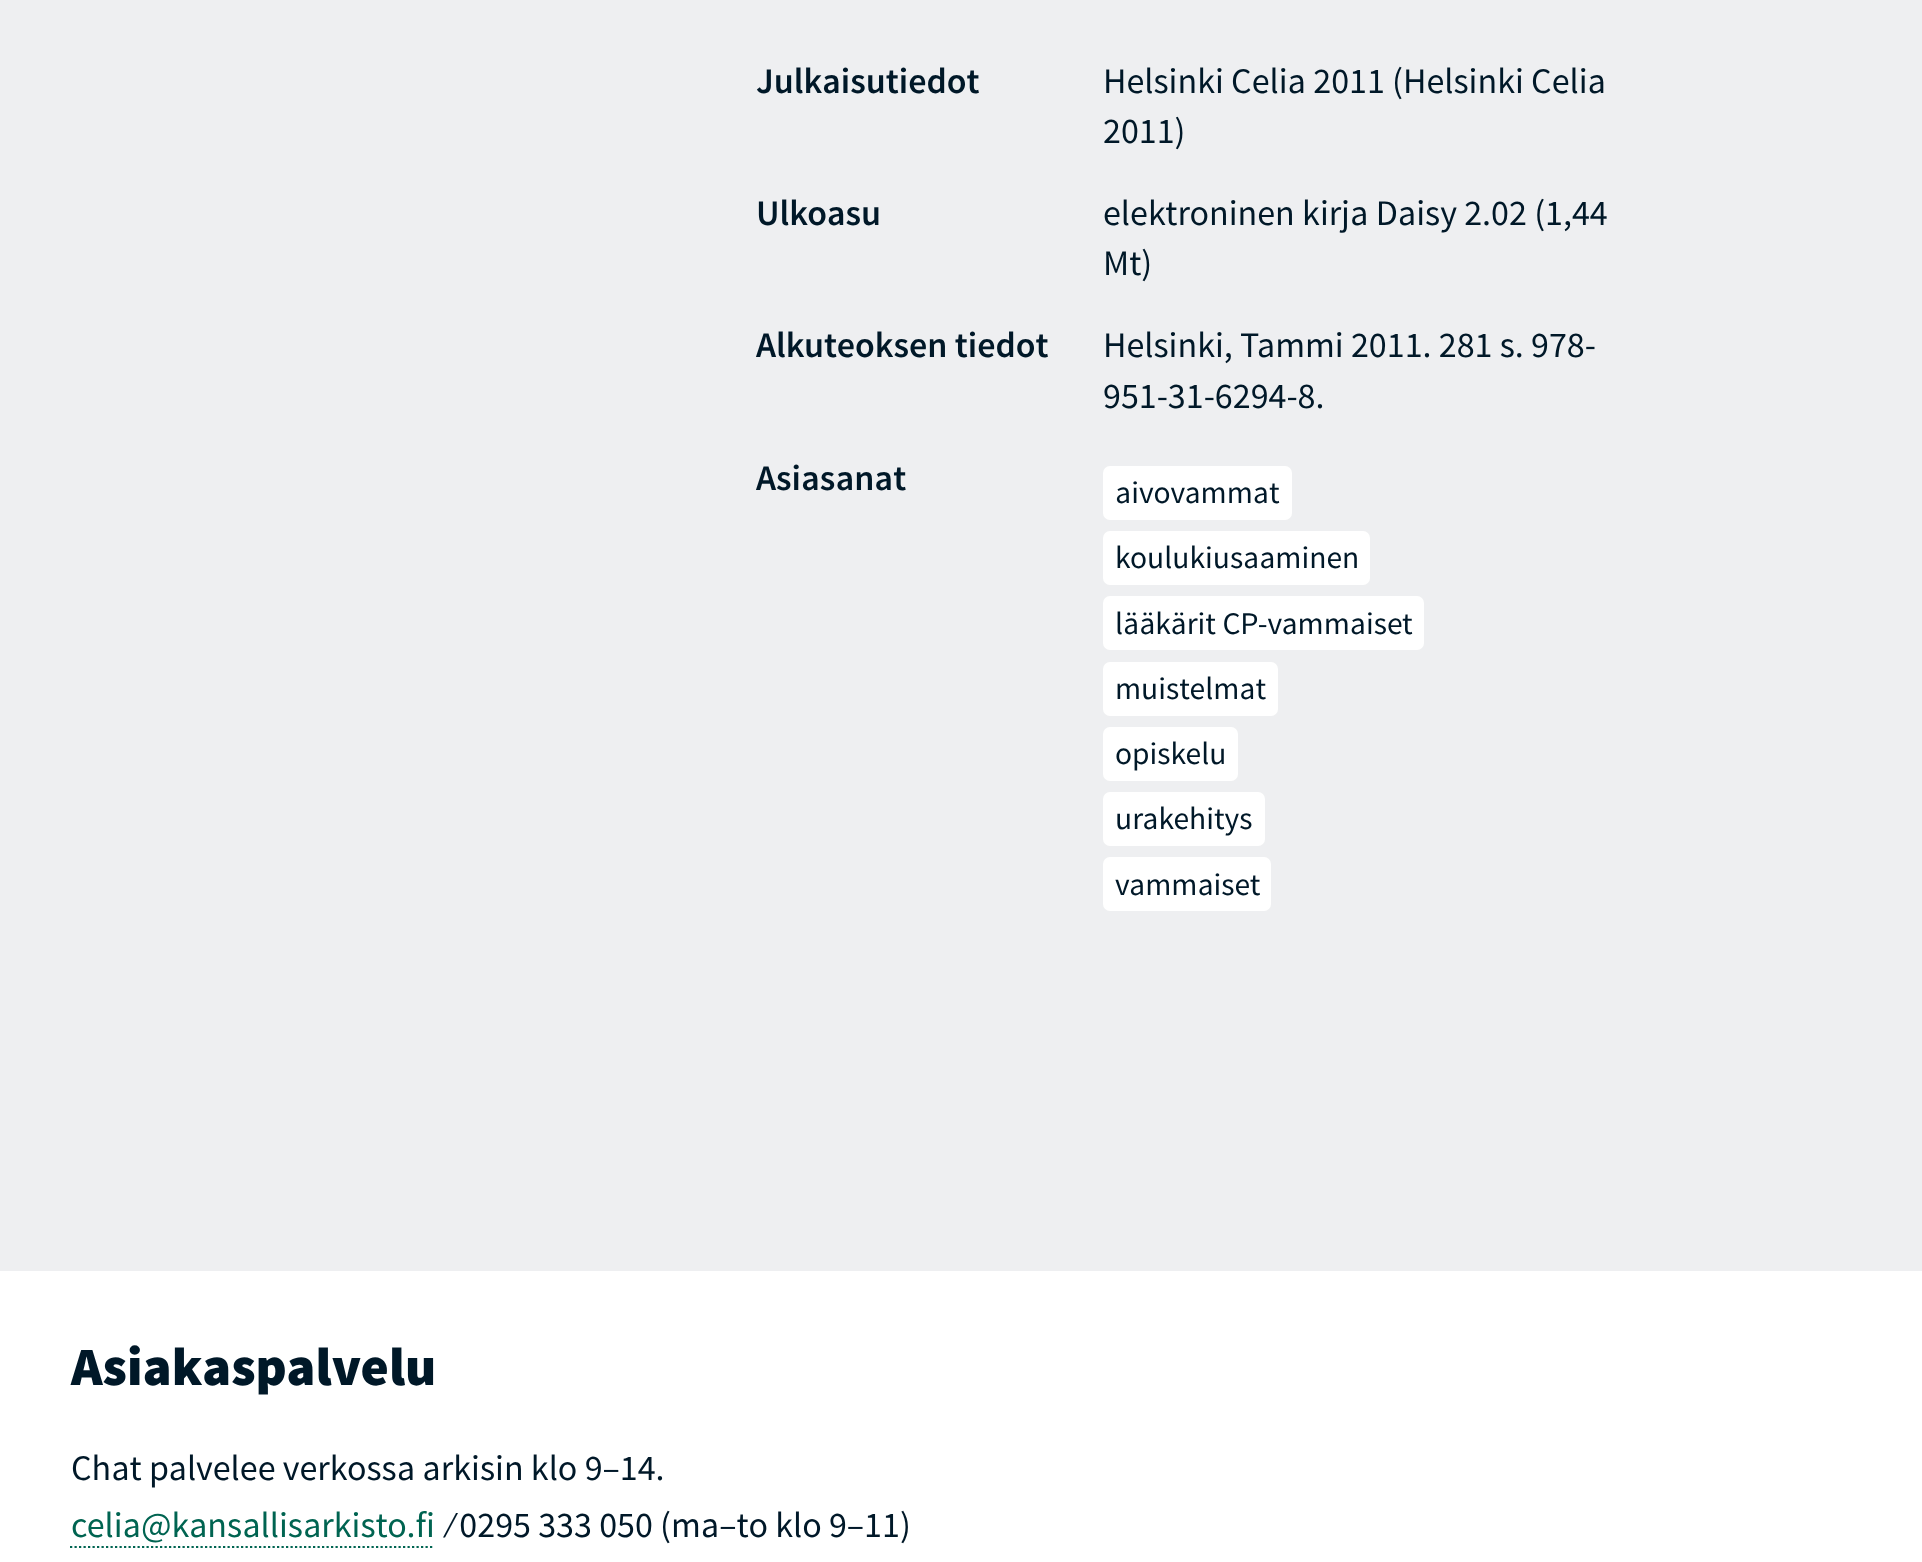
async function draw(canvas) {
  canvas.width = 1922;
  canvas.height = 1562;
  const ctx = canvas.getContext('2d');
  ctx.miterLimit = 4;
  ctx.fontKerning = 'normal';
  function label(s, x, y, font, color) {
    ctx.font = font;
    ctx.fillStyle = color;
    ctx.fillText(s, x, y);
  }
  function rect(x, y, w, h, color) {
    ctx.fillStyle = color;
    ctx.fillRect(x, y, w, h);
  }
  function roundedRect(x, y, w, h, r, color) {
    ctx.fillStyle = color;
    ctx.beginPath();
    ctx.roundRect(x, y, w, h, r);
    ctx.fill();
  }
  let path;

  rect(0, 0, 1922, 1562, '#eeeff1');
  label('Julkaisutiedot', 756, 93, '600 36px Source Sans Pro', '#001828');
  label('Helsinki Celia 2011 (Helsinki Celia', 1103, 93, '36px Source Sans Pro', '#001828');
  label('2011)', 1103, 143, '36px Source Sans Pro', '#001828');
  label('Ulkoasu', 756, 225, '600 36px Source Sans Pro', '#001828');
  label('elektroninen kirja Daisy 2.02 (1,44', 1103, 225, '36px Source Sans Pro', '#001828');
  label('Mt)', 1103, 275, '36px Source Sans Pro', '#001828');
  label('Alkuteoksen tiedot', 756, 357, '600 36px Source Sans Pro', '#001828');
  label('Helsinki, Tammi 2011. 281 s. 978-', 1103, 357, '36px Source Sans Pro', '#001828');
  label('951-31-6294-8.', 1103, 408, '36px Source Sans Pro', '#001828');
  label('Asiasanat', 756, 490, '600 36px Source Sans Pro', '#001828');
  roundedRect(1103, 466, 189, 54, 7, '#fff');
  label('aivovammat', 1115, 503, '31.5px Source Sans Pro', '#001828');
  roundedRect(1103, 531, 267, 54, 7, '#fff');
  label('koulukiusaaminen', 1115, 568, '31.5px Source Sans Pro', '#001828');
  roundedRect(1103, 596, 321, 54, 7, '#fff');
  label('lääkärit CP-vammaiset', 1115, 634, '31.5px Source Sans Pro', '#001828');
  roundedRect(1103, 662, 175, 54, 7, '#fff');
  label('muistelmat', 1115, 699, '31.5px Source Sans Pro', '#001828');
  roundedRect(1103, 727, 135, 54, 7, '#fff');
  label('opiskelu', 1115, 764, '31.5px Source Sans Pro', '#001828');
  roundedRect(1103, 792, 162, 54, 7, '#fff');
  label('urakehitys', 1115, 829, '31.5px Source Sans Pro', '#001828');
  roundedRect(1103, 857, 168, 54, 7, '#fff');
  label('vammaiset', 1115, 895, '31.5px Source Sans Pro', '#001828');
  rect(0, 1271, 1922, 291, '#fff');
  label('Asiakaspalvelu', 71, 1385, '900 54px Source Sans Pro', '#001828');
  label('Chat palvelee verkossa arkisin klo 9–14.', 71, 1480, '36px Source Sans Pro', '#001828');
  label('celia@kansallisarkisto.fi', 71, 1537, '36px Source Sans Pro', '#006451');
  path = new Path2D('M70 1547H434');
  ctx.strokeStyle = '#006451';
  ctx.lineWidth = 2.2;
  ctx.setLineDash([2.25, 2.25]);
  ctx.stroke(path);
  label('⁄ 0295 333 050 (ma–to klo 9–11)', 449, 1537, '36px Source Sans Pro', '#001828');
}

draw(document.querySelector('canvas'));
